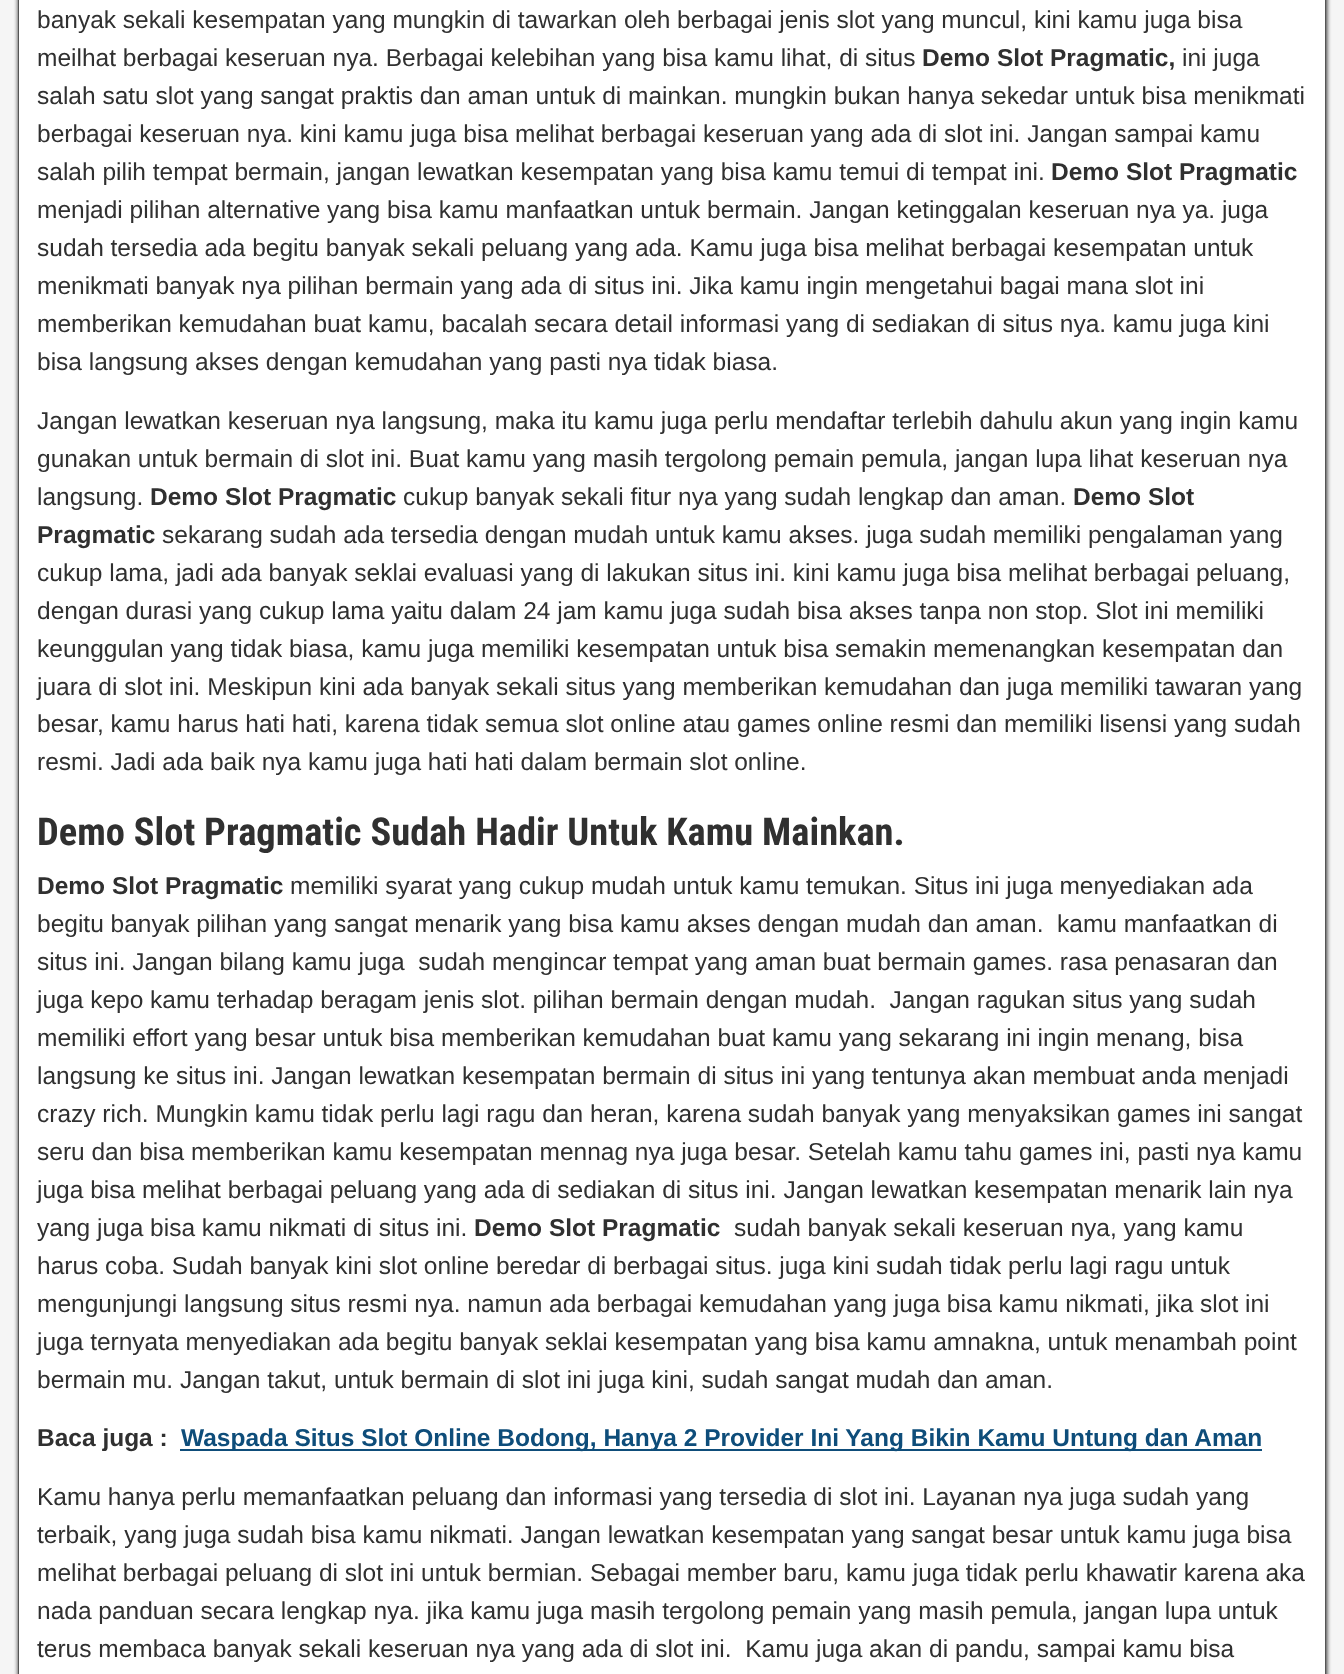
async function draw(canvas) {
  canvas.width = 1344;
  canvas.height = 1674;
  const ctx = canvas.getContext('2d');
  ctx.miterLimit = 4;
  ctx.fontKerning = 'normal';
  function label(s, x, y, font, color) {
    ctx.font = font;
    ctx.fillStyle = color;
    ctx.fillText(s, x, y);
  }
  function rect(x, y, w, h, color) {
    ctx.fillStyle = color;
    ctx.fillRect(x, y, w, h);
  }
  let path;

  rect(0, 0, 1344, 1674, '#f5f5f5');
  ctx.fillStyle = '#333';
  ctx.filter = 'blur(2px)';
  ctx.beginPath();
  ctx.rect(18, -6, 1309, 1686);
  ctx.fill();
  ctx.filter = 'none';
  rect(19, 0, 1306, 1674, '#fff');
  ctx.fillStyle = '#555';
  path = new Path2D('M1326-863V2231L1325 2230V-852Z');
  ctx.fill(path);
  path = new Path2D('M18 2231V-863L19-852V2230Z');
  ctx.fill(path);
  label('banyak sekali kesempatan yang mungkin di tawarkan oleh berbagai jenis slot yang muncul, kini kamu juga bisa', 37, 28, '24.5px Arimo', '#303030');
  label('meilhat berbagai keseruan nya. Berbagai kelebihan yang bisa kamu lihat, di situs', 37, 66, '24.5px Arimo', '#303030');
  label('Demo Slot Pragmatic,', 922, 66, 'bold 24.5px Arimo', '#303030');
  label('ini juga', 1182, 66, '24.5px Arimo', '#303030');
  label('salah satu slot yang sangat praktis dan aman untuk di mainkan. mungkin bukan hanya sekedar untuk bisa menikmati', 37, 104, '24.5px Arimo', '#303030');
  label('berbagai keseruan nya. kini kamu juga bisa melihat berbagai keseruan yang ada di slot ini. Jangan sampai kamu', 37, 142, '24.5px Arimo', '#303030');
  label('salah pilih tempat bermain, jangan lewatkan kesempatan yang bisa kamu temui di tempat ini.', 37, 180, '24.5px Arimo', '#303030');
  label('Demo Slot Pragmatic', 1051, 180, 'bold 24.5px Arimo', '#303030');
  label('menjadi pilihan alternative yang bisa kamu manfaatkan untuk bermain. Jangan ketinggalan keseruan nya ya. juga', 37, 218, '24.5px Arimo', '#303030');
  label('sudah tersedia ada begitu banyak sekali peluang yang ada. Kamu juga bisa melihat berbagai kesempatan untuk', 37, 256, '24.5px Arimo', '#303030');
  label('menikmati banyak nya pilihan bermain yang ada di situs ini. Jika kamu ingin mengetahui bagai mana slot ini', 37, 294, '24.5px Arimo', '#303030');
  label('memberikan kemudahan buat kamu, bacalah secara detail informasi yang di sediakan di situs nya. kamu juga kini', 37, 332, '24.5px Arimo', '#303030');
  label('bisa langsung akses dengan kemudahan yang pasti nya tidak biasa.', 37, 370, '24.5px Arimo', '#303030');
  label('Jangan lewatkan keseruan nya langsung, maka itu kamu juga perlu mendaftar terlebih dahulu akun yang ingin kamu', 37, 429, '24.5px Arimo', '#303030');
  label('gunakan untuk bermain di slot ini. Buat kamu yang masih tergolong pemain pemula, jangan lupa lihat keseruan nya', 37, 467, '24.5px Arimo', '#303030');
  label('langsung.', 37, 505, '24.5px Arimo', '#303030');
  label('Demo Slot Pragmatic', 150, 505, 'bold 24.5px Arimo', '#303030');
  label('cukup banyak sekali fitur nya yang sudah lengkap dan aman.', 403, 505, '24.5px Arimo', '#303030');
  label('Demo Slot', 1073, 505, 'bold 24.5px Arimo', '#303030');
  label('Pragmatic', 37, 543, 'bold 24.5px Arimo', '#303030');
  label('sekarang sudah ada tersedia dengan mudah untuk kamu akses. juga sudah memiliki pengalaman yang', 162, 543, '24.5px Arimo', '#303030');
  label('cukup lama, jadi ada banyak seklai evaluasi yang di lakukan situs ini. kini kamu juga bisa melihat berbagai peluang,', 37, 581, '24.5px Arimo', '#303030');
  label('dengan durasi yang cukup lama yaitu dalam 24 jam kamu juga sudah bisa akses tanpa non stop. Slot ini memiliki', 37, 619, '24.5px Arimo', '#303030');
  label('keunggulan yang tidak biasa, kamu juga memiliki kesempatan untuk bisa semakin memenangkan kesempatan dan', 37, 657, '24.5px Arimo', '#303030');
  label('juara di slot ini. Meskipun kini ada banyak sekali situs yang memberikan kemudahan dan juga memiliki tawaran yang', 37, 695, '24.5px Arimo', '#303030');
  label('besar, kamu harus hati hati, karena tidak semua slot online atau games online resmi dan memiliki lisensi yang sudah', 37, 732, '24.5px Arimo', '#303030');
  label('resmi. Jadi ada baik nya kamu juga hati hati dalam bermain slot online.', 37, 770, '24.5px Arimo', '#303030');
  label('Demo Slot Pragmatic Sudah Hadir Untuk Kamu Mainkan.', 37, 845, 'bold 38.5px Roboto Condensed', '#303030');
  label('Demo Slot Pragmatic', 37, 894, 'bold 24.5px Arimo', '#303030');
  label('memiliki syarat yang cukup mudah untuk kamu temukan. Situs ini juga menyediakan ada', 290, 894, '24.5px Arimo', '#303030');
  label('begitu banyak pilihan yang sangat menarik yang bisa kamu akses dengan mudah dan aman.', 37, 932, '24.5px Arimo', '#303030');
  label('kamu manfaatkan di', 1057, 932, '24.5px Arimo', '#303030');
  label('situs ini. Jangan bilang kamu juga  sudah mengincar tempat yang aman buat bermain games. rasa penasaran dan', 37, 970, '24.5px Arimo', '#303030');
  label('juga kepo kamu terhadap beragam jenis slot. pilihan bermain dengan mudah.  Jangan ragukan situs yang sudah', 37, 1008, '24.5px Arimo', '#303030');
  label('memiliki effort yang besar untuk bisa memberikan kemudahan buat kamu yang sekarang ini ingin menang, bisa', 37, 1046, '24.5px Arimo', '#303030');
  label('langsung ke situs ini. Jangan lewatkan kesempatan bermain di situs ini yang tentunya akan membuat anda menjadi', 37, 1084, '24.5px Arimo', '#303030');
  label('crazy rich. Mungkin kamu tidak perlu lagi ragu dan heran, karena sudah banyak yang menyaksikan games ini sangat', 37, 1122, '24.5px Arimo', '#303030');
  label('seru dan bisa memberikan kamu kesempatan mennag nya juga besar. Setelah kamu tahu games ini, pasti nya kamu', 37, 1160, '24.5px Arimo', '#303030');
  label('juga bisa melihat berbagai peluang yang ada di sediakan di situs ini. Jangan lewatkan kesempatan menarik lain nya', 37, 1198, '24.5px Arimo', '#303030');
  label('yang juga bisa kamu nikmati di situs ini.', 37, 1236, '24.5px Arimo', '#303030');
  label('Demo Slot Pragmatic', 474, 1236, 'bold 24.5px Arimo', '#303030');
  label('sudah banyak sekali keseruan nya, yang kamu', 734, 1236, '24.5px Arimo', '#303030');
  label('harus coba. Sudah banyak kini slot online beredar di berbagai situs. juga kini sudah tidak perlu lagi ragu untuk', 37, 1274, '24.5px Arimo', '#303030');
  label('mengunjungi langsung situs resmi nya. namun ada berbagai kemudahan yang juga bisa kamu nikmati, jika slot ini', 37, 1312, '24.5px Arimo', '#303030');
  label('juga ternyata menyediakan ada begitu banyak seklai kesempatan yang bisa kamu amnakna, untuk menambah point', 37, 1350, '24.5px Arimo', '#303030');
  label('bermain mu. Jangan takut, untuk bermain di slot ini juga kini, sudah sangat mudah dan aman.', 37, 1388, '24.5px Arimo', '#303030');
  label('Baca juga :', 37, 1446, 'bold 24.5px Arimo', '#303030');
  rect(180, 1449, 1082, 2, '#0e4d7a');
  label('Waspada Situs Slot Online Bodong, Hanya 2 Provider Ini Yang Bikin Kamu Untung dan Aman', 181, 1446, 'bold 24.5px Arimo', '#0e4d7a');
  label('Kamu hanya perlu memanfaatkan peluang dan informasi yang tersedia di slot ini. Layanan nya juga sudah yang', 37, 1505, '24.5px Arimo', '#303030');
  label('terbaik, yang juga sudah bisa kamu nikmati. Jangan lewatkan kesempatan yang sangat besar untuk kamu juga bisa', 37, 1543, '24.5px Arimo', '#303030');
  label('melihat berbagai peluang di slot ini untuk bermian. Sebagai member baru, kamu juga tidak perlu khawatir karena aka', 37, 1581, '24.5px Arimo', '#303030');
  label('nada panduan secara lengkap nya. jika kamu juga masih tergolong pemain yang masih pemula, jangan lupa untuk', 37, 1619, '24.5px Arimo', '#303030');
  label('terus membaca banyak sekali keseruan nya yang ada di slot ini.  Kamu juga akan di pandu, sampai kamu bisa', 37, 1657, '24.5px Arimo', '#303030');
}

draw(document.querySelector('canvas'));
